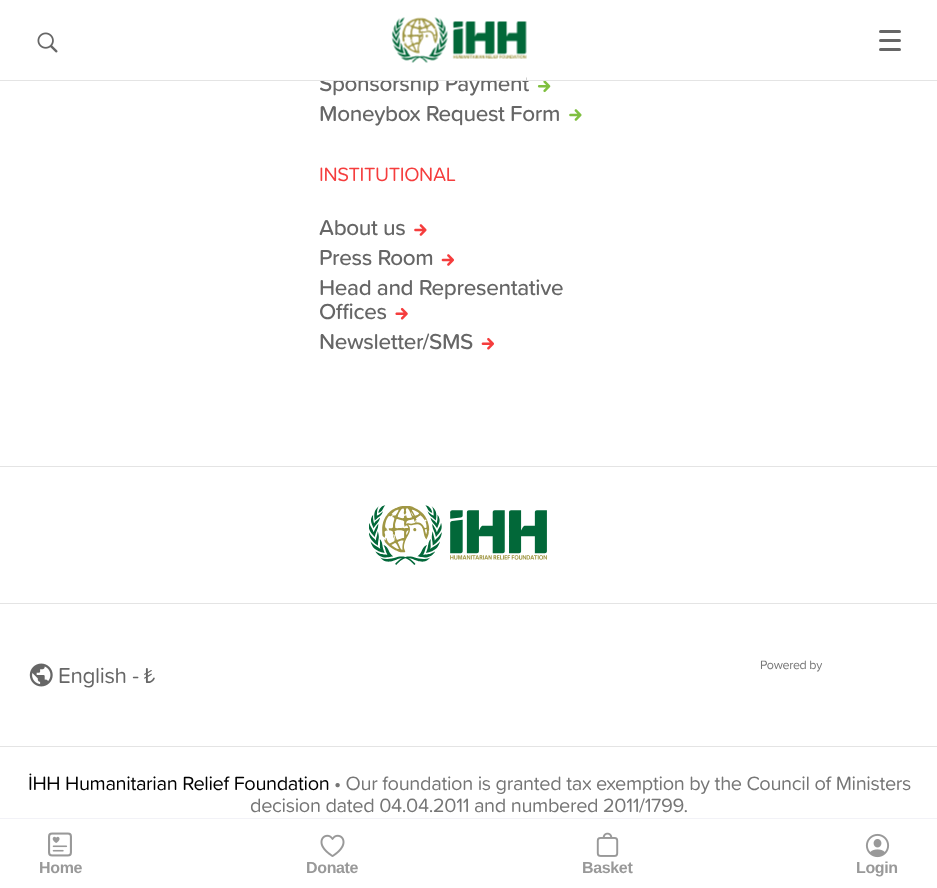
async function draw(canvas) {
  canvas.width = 937;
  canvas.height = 888;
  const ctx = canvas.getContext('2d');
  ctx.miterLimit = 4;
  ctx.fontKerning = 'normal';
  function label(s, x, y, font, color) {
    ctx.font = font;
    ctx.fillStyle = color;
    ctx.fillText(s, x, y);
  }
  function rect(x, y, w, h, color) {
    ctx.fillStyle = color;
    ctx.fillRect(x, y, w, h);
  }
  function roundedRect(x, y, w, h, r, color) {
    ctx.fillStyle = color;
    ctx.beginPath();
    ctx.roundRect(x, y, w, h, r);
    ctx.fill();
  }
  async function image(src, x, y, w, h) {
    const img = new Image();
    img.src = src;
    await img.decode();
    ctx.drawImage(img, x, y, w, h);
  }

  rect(0, 0, 937, 888, '#fff');
  ctx.letterSpacing = '-0.35px';
  label('Sponsorship Payment', 319, 91, '500 22.5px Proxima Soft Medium', '#666');
  rect(320, 75, 206, 5, '#fff');
  rect(0, 80, 937, 1, '#e4e4e4');
  await image('assets/img1.png', 37, 32, 21, 21);
  await image('assets/img2.png', 391, 17, 136, 46);
  roundedRect(879, 30, 22, 3, 1.5, '#666');
  roundedRect(879, 39, 22, 3, 1.5, '#666');
  roundedRect(879, 48, 22, 3, 1.5, '#666');
  await image('assets/img3.png', 537, 81, 14, 12);
  label('Moneybox Request Form', 319, 121, '500 22.5px Proxima Soft Medium', '#666');
  await image('assets/img4.png', 569, 109, 13, 12);
  label('INSTITUTIONAL', 319, 181, '20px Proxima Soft', '#f53d3d');
  label('About us', 319, 235, '500 22.5px Proxima Soft Medium', '#666');
  await image('assets/img5.png', 414, 224, 13, 12);
  label('Press Room', 319, 265, '500 22.5px Proxima Soft Medium', '#666');
  await image('assets/img6.png', 441, 254, 13, 12);
  label('Head and Representative', 319, 295, '500 22.5px Proxima Soft Medium', '#666');
  label('Offices', 319, 319, '500 22.5px Proxima Soft Medium', '#666');
  await image('assets/img7.png', 395, 307, 13, 13);
  label('Newsletter/SMS', 319, 349, '500 22.5px Proxima Soft Medium', '#666');
  await image('assets/img8.png', 481, 337, 13, 13);
  rect(0, 466, 937, 1, '#e4e4e4');
  rect(0, 603, 937, 1, '#e4e4e4');
  await image('assets/img9.png', 369, 505, 178, 60);
  await image('assets/img10.png', 29, 663, 24, 24);
  label('English - ₺', 58, 683, '22.5px Proxima Soft', '#666');
  label('Powered by', 760, 669, '12.5px Proxima Soft', '#767676');
  rect(0, 746, 937, 1, '#e4e4e4');
  label('İHH Humanitarian Relief Foundation', 28, 790, '20px Proxima Soft', '#000');
  label('• Our foundation is granted tax exemption by the Council of Ministers', 334, 790, '20px Proxima Soft', '#767676');
  label('decision dated 04.04.2011 and numbered 2011/1799.', 250, 812, '20px Proxima Soft', '#767676');
  rect(0, 818, 937, 1, '#f2f2f7');
  await image('assets/img11.png', 48, 832, 24, 25);
  label('Home', 39, 873, 'bold 16px Liberation Sans', '#999');
  await image('assets/img12.png', 320, 834, 25, 23);
  label('Donate', 306, 873, 'bold 16px Liberation Sans', '#999');
  await image('assets/img13.png', 596, 832, 23, 25);
  label('Basket', 582, 873, 'bold 16px Liberation Sans', '#999');
  await image('assets/img14.png', 865, 833, 25, 25);
  label('Login', 856, 873, 'bold 16px Liberation Sans', '#999');
}

draw(document.querySelector('canvas'));
